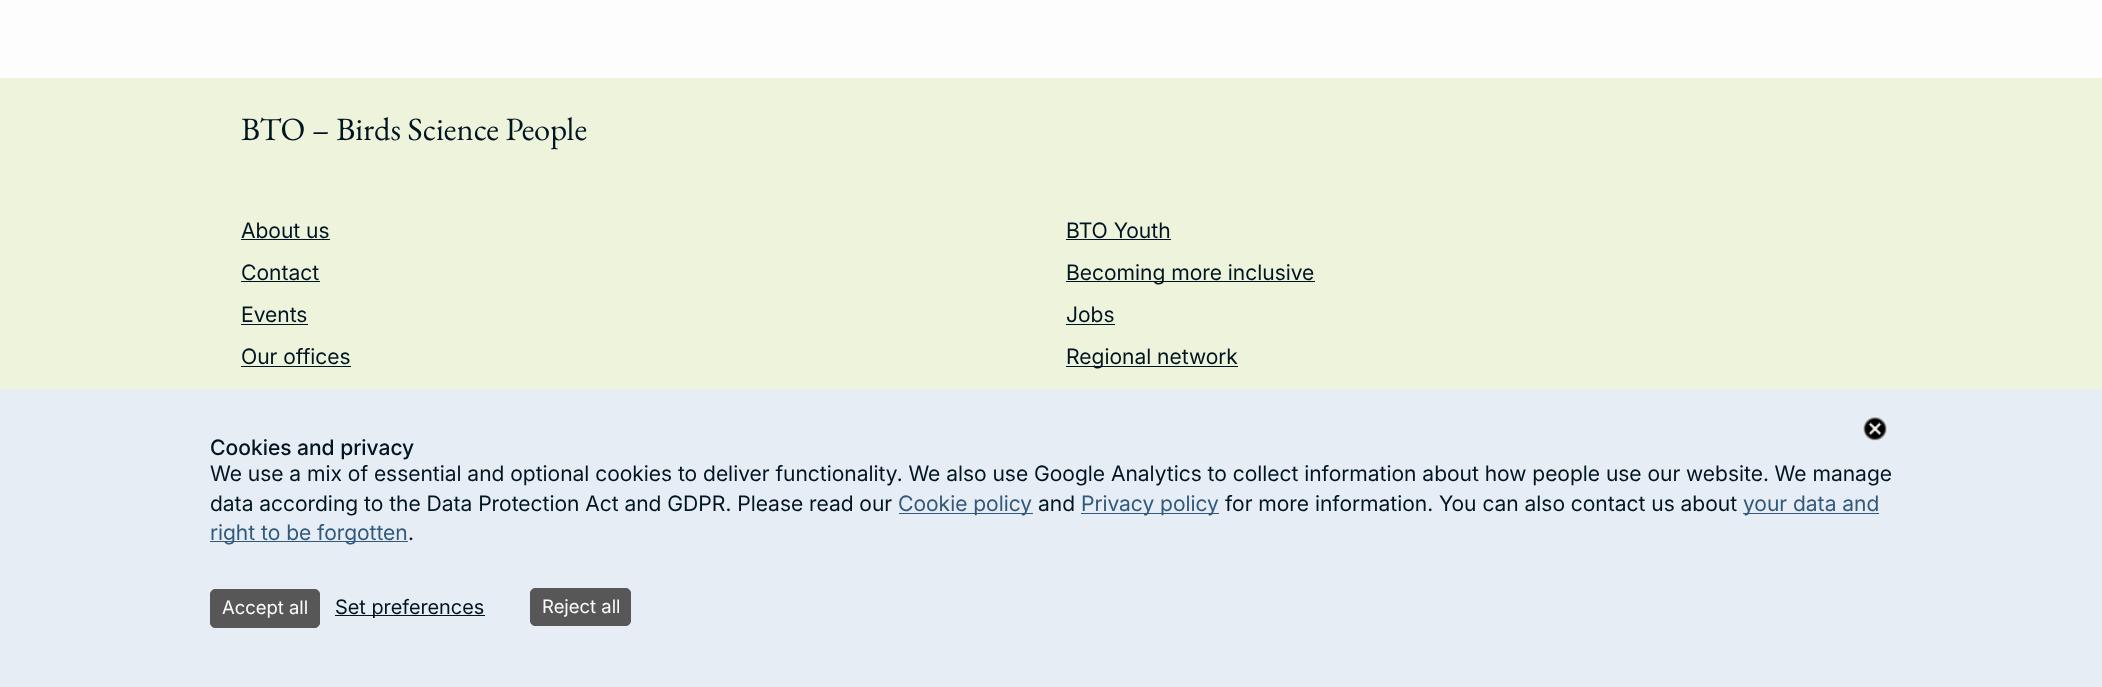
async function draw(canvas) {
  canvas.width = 2102;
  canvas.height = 687;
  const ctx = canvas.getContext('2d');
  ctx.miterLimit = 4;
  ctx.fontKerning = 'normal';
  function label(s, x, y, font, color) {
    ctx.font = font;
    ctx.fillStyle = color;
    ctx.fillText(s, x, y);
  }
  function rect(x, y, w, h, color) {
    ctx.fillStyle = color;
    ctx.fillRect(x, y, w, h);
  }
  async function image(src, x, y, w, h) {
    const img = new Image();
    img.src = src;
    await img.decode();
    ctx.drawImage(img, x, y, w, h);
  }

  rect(0, 0, 2102, 687, '#fdfdfd');
  rect(0, 78, 2102, 311, '#eef3db');
  label('BTO – Birds Science People', 241, 140, '32.5px EB Garamond', '#001522');
  label('About us', 241, 238, '21.25px Inter', '#001522');
  rect(241, 239, 89, 1, '#001522');
  label('BTO Youth', 1066, 238, '21.25px Inter', '#001522');
  rect(1066, 239, 105, 1, '#001522');
  label('Contact', 241, 280, '21.25px Inter', '#001522');
  rect(241, 281, 79, 1, '#001522');
  rect(1066, 281, 249, 1, '#001522');
  label('Becoming more inclusive', 1066, 280, '21.25px Inter', '#001522');
  label('Events', 241, 322, '21.25px Inter', '#001522');
  rect(241, 324, 67, 1, '#001522');
  label('Jobs', 1066, 322, '21.25px Inter', '#001522');
  rect(1066, 324, 49, 1, '#001522');
  label('Our offices', 241, 364, '21.25px Inter', '#001522');
  rect(241, 366, 110, 1, '#001522');
  rect(1066, 366, 172, 1, '#001522');
  label('Regional network', 1066, 364, '21.25px Inter', '#001522');
  rect(0, 389, 2102, 298, '#e6edf4');
  await image('assets/img1.png', 1862, 416, 26, 25);
  label('Cookies and privacy', 210, 455, '500 21.25px Inter', '#001522');
  label('We use a mix of essential and optional cookies to deliver functionality. We also use Google Analytics to collect information about how people use our website. We manage', 210, 481, '21.25px Inter', '#001522');
  label('data according to the Data Protection Act and GDPR. Please read our', 210, 511, '21.25px Inter', '#001522');
  rect(899, 513, 134, 1, '#31597d');
  label('Cookie policy', 898, 511, '21.25px Inter', '#31597d');
  label('and', 1038, 511, '21.25px Inter', '#001522');
  rect(1081, 513, 138, 1, '#31597d');
  label('Privacy policy', 1081, 511, '21.25px Inter', '#31597d');
  label('for more information. You can also contact us about', 1225, 511, '21.25px Inter', '#001522');
  rect(1743, 513, 136, 1, '#31597d');
  label('your data and', 1743, 511, '21.25px Inter', '#31597d');
  rect(210, 541, 198, 1, '#31597d');
  label('right to be forgotten', 210, 540, '21.25px Inter', '#31597d');
  label('.', 408, 540, '21.25px Inter', '#001522');
  ctx.fillStyle = '#575757';
  ctx.beginPath();
  ctx.roundRect(210.5, 589.5, 109, 38, 4.5);
  ctx.fill();
  ctx.strokeStyle = '#575757';
  ctx.stroke();
  label('Accept all', 222, 614, '18.5px "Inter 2"', '#fdfdfd');
  rect(335, 615, 150, 1, '#001522');
  label('Set preferences', 335, 614, '20px "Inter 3"', '#001522');
  ctx.fillStyle = '#575757';
  ctx.beginPath();
  ctx.roundRect(530.5, 588.5, 100, 37, 4.5);
  ctx.fill();
  ctx.stroke();
  label('Reject all', 542, 613, '18.5px "Inter 2"', '#fdfdfd');
}

draw(document.querySelector('canvas'));
